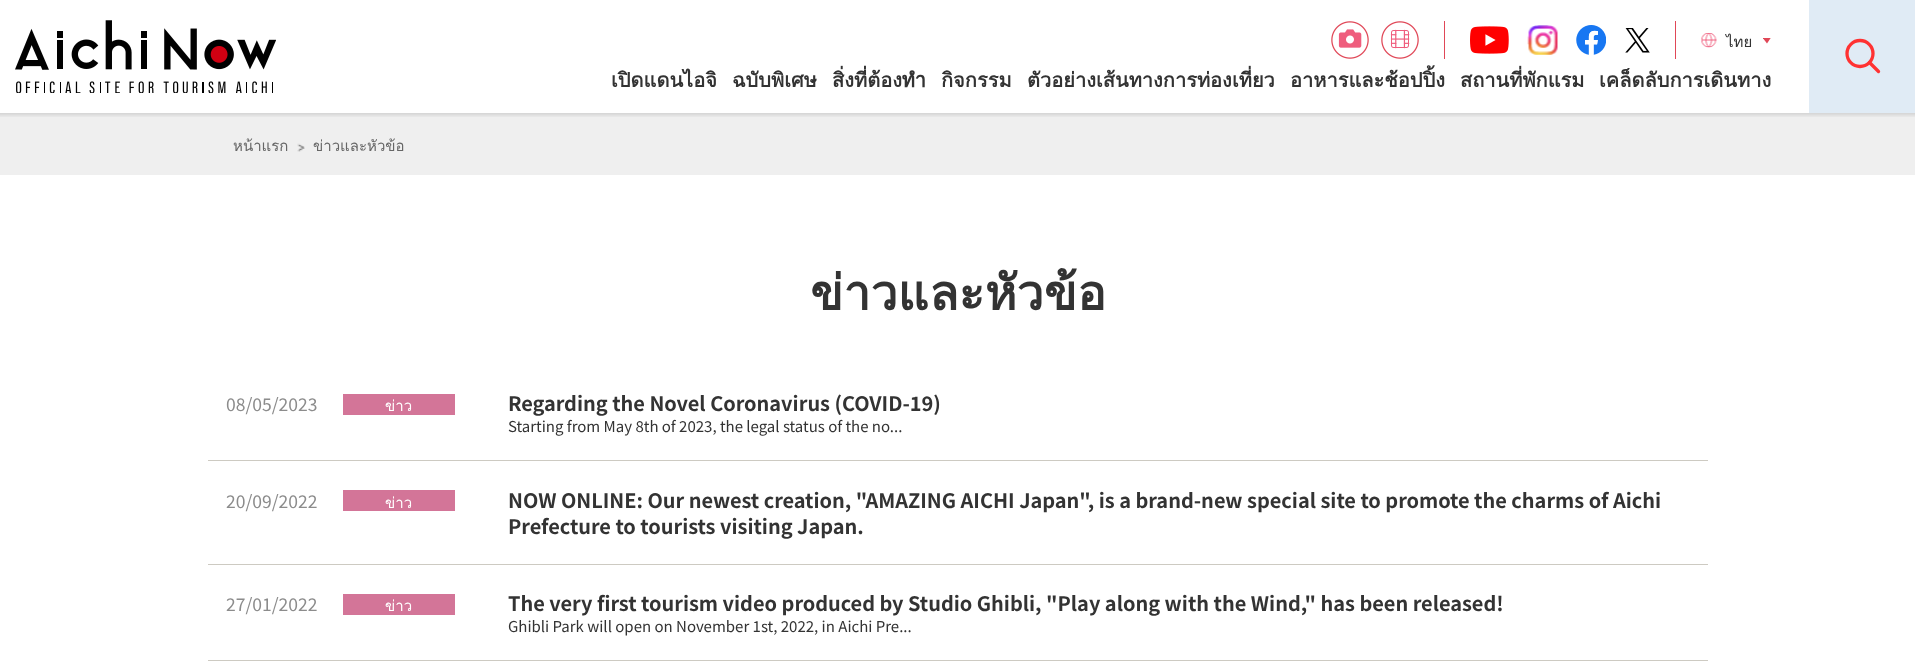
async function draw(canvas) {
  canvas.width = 1915;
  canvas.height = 668;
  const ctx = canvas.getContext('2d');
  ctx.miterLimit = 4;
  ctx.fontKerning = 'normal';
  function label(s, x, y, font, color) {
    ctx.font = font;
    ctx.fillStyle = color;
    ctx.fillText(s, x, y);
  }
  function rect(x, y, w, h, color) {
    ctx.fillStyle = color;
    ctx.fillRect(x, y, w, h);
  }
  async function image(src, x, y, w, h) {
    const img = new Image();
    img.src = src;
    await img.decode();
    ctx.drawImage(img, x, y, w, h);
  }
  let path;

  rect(0, 0, 1915, 668, '#fff');
  await image('assets/img1.png', 15, 20, 261, 73);
  rect(1444, 21, 1, 38, '#e04757');
  await image('assets/img2.png', 1331, 21, 38, 38);
  await image('assets/img3.png', 1381, 21, 38, 38);
  rect(1675, 21, 1, 38, '#e04757');
  await image('assets/img4.png', 1470, 26, 39, 28);
  await image('assets/img5.png', 1527, 25, 31, 30);
  await image('assets/img6.png', 1576, 25, 30, 30);
  await image('assets/img7.png', 1625, 28, 25, 25);
  await image('assets/img8.png', 1701, 33, 16, 15);
  ctx.save();
  ctx.beginPath();
  ctx.rect(1763, 38, 8, 6);
  ctx.clip();
  path = new Path2D('M1771 37.5L1767 43.5L1762.5 37.5Z');
  ctx.fill(path);
  ctx.restore();
  label('ไทย', 1726, 47, '15px Loma', '#333');
  label('เปิดแดนไอจิ', 611, 87, 'bold 20px Loma', '#333');
  label('ฉบับพิเศษ', 732, 87, 'bold 20px Loma', '#333');
  label('สิ่งที่ต้องทำ', 832, 87, 'bold 20px Loma', '#333');
  label('กิจกรรม', 941, 87, 'bold 20px Loma', '#333');
  label('ตัวอย่างเส้นทางการท่องเที่ยว', 1027, 87, 'bold 20px Loma', '#333');
  label('อาหารและช้อปปิ้ง', 1290, 87, 'bold 20px Loma', '#333');
  label('สถานที่พักแรม', 1460, 87, 'bold 20px Loma', '#333');
  label('เคล็ดลับการเดินทาง', 1599, 87, 'bold 20px Loma', '#333');
  rect(1809, 0, 106, 113, '#e0ebf5');
  ctx.beginPath();
  ctx.arc(1860, 53.5, 13, 0, 2 * Math.PI);
  ctx.strokeStyle = '#ff3232';
  ctx.lineWidth = 3.3;
  ctx.stroke();
  path = new Path2D('M1869.5 62.5L1878.5 71.5');
  ctx.lineCap = 'round';
  ctx.lineJoin = 'round';
  ctx.stroke(path);
  rect(0, 117, 1915, 58, '#efefef');
  await image('assets/img9.png', 0, 113, 1915, 4);
  label('หน้าแรก', 233, 151, '15px Loma', '#666');
  await image('assets/img10.png', 297, 143, 8, 9);
  label('ข่าวและหัวข้อ', 313, 151, '15px Loma', '#666');
  label('ข่าวและหัวข้อ', 810, 310, 'bold 48.5px Loma', '#333');
  rect(208, 460, 1500, 1, '#cdcac2');
  label('08/05/2023', 226, 411, '17.5px Noto Sans JP', '#8c8c8c');
  rect(343, 394, 112, 21, '#d37598');
  label('ข่าว', 385, 411, '15px Loma', '#fff');
  label('Regarding the Novel Coronavirus (COVID-19)', 508, 411, 'bold 19.95px Noto Sans JP', '#333');
  label('Starting from May 8th of 2023, the legal status of the no...', 508, 432, '15px Noto Sans JP', '#333');
  rect(208, 564, 1500, 1, '#cdcac2');
  label('20/09/2022', 226, 508, '17.5px Noto Sans JP', '#8c8c8c');
  rect(343, 490, 112, 21, '#d37598');
  label('ข่าว', 385, 508, '15px Loma', '#fff');
  label('NOW ONLINE: Our newest creation, "AMAZING AICHI Japan", is a brand-new special site to promote the charms of Aichi', 508, 508, 'bold 19.95px Noto Sans JP', '#333');
  label('Prefecture to tourists visiting Japan.', 508, 534, 'bold 19.95px Noto Sans JP', '#333');
  rect(208, 660, 1500, 1, '#cdcac2');
  label('27/01/2022', 226, 611, '17.5px Noto Sans JP', '#8c8c8c');
  rect(343, 594, 112, 21, '#d37598');
  label('ข่าว', 385, 611, '15px Loma', '#fff');
  label('The very first tourism video produced by Studio Ghibli, "Play along with the Wind," has been released!', 508, 611, 'bold 19.95px Noto Sans JP', '#333');
  label('Ghibli Park will open on November 1st, 2022, in Aichi Pre...', 508, 632, '15px Noto Sans JP', '#333');
}

draw(document.querySelector('canvas'));
